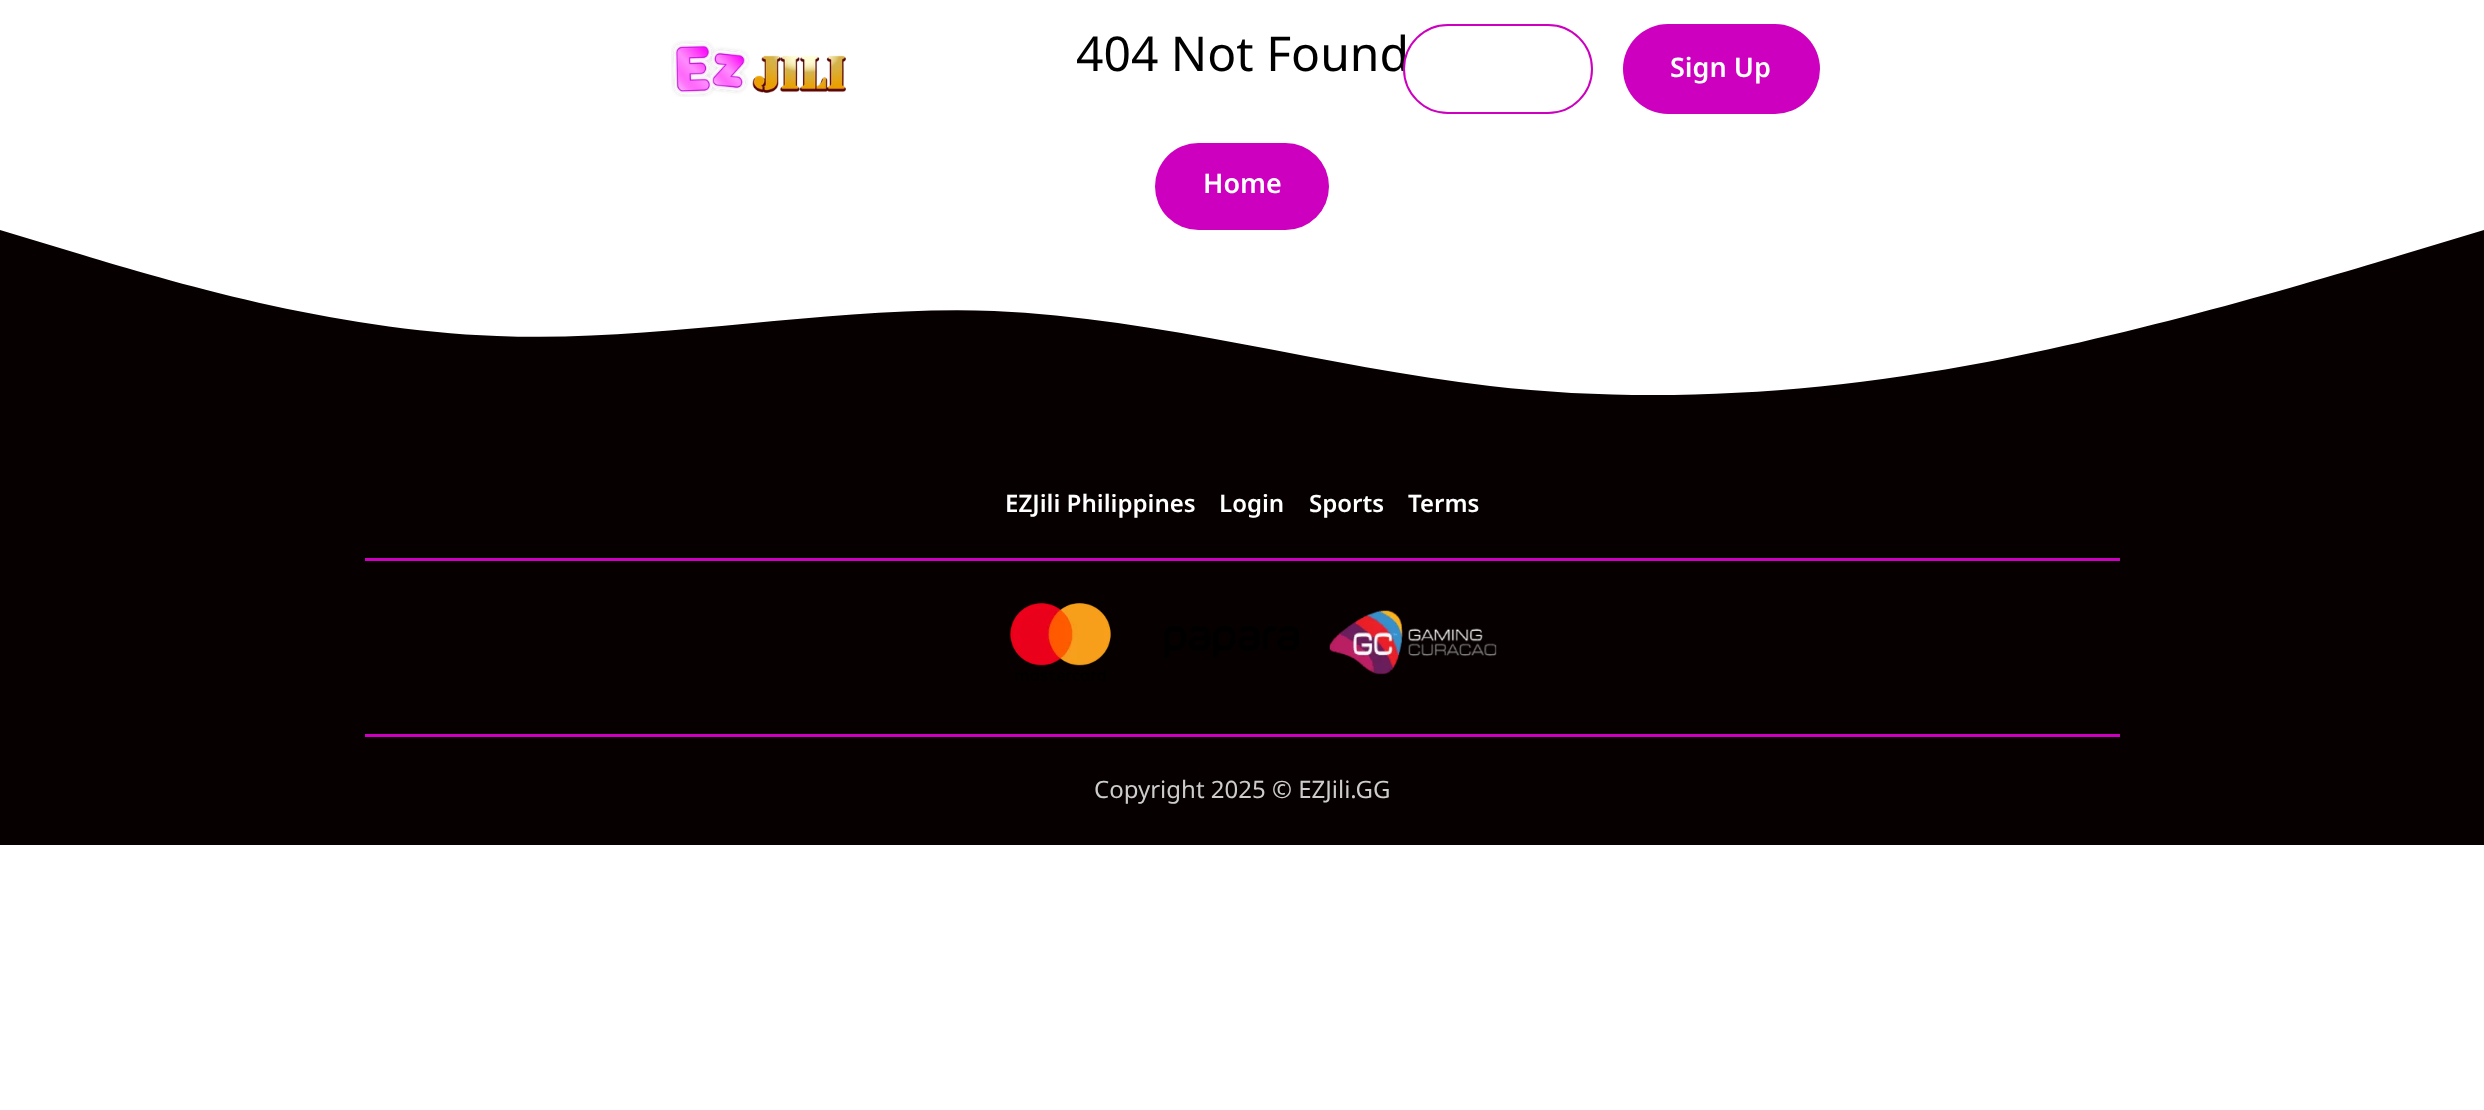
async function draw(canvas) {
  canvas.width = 2484;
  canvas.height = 1110;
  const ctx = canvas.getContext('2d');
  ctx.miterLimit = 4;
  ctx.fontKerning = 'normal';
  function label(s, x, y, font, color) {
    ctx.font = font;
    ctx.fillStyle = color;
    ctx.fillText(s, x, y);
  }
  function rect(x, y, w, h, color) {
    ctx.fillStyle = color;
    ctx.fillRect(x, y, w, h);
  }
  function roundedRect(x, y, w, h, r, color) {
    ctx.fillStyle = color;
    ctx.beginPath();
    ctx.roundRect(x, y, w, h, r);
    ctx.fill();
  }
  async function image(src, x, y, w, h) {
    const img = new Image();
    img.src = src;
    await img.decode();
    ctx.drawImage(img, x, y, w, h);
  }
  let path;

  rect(0, 0, 2484, 1110, '#fff');
  label('404 Not Found', 1076, 71, '48px Noto Sans Thai', '#000');
  roundedRect(1155, 143, 174, 87, 43.5, '#cc00be');
  label('Home', 1203, 193, '600 27px Noto Sans Thai', '#fff');
  await image('assets/img1.png', 671, 40, 175, 57);
  ctx.beginPath();
  ctx.roundRect(1404, 25, 188, 88, 44);
  ctx.strokeStyle = '#cc00be';
  ctx.lineWidth = 2;
  ctx.stroke();
  roundedRect(1623, 24, 197, 90, 45, '#cc00be');
  label('Sign Up', 1670, 77, '600 27px Noto Sans Thai', '#fff');
  ctx.fillStyle = '#070000';
  path = new Path2D('M2484 230L2401 255C2318 280 2153 330 1987 362C1822 393 1656 405 1490 386C1325 367 1159 318 994 311C828 305 662 343 497 336C331 330 166 280 83 255L0 230V452H2484Z');
  ctx.fill(path, 'evenodd');
  rect(0, 452, 2484, 393, '#070000');
  label('EZJili Philippines', 1005, 512, '600 24px Noto Sans Thai', '#fff');
  label('Login', 1219, 512, '600 24px Noto Sans Thai', '#fff');
  label('Sports', 1309, 512, '600 24px Noto Sans Thai', '#fff');
  label('Terms', 1408, 512, '600 24px Noto Sans Thai', '#fff');
  rect(365, 558, 1755, 3, '#cc00be');
  await image('assets/img2.png', 1010, 603, 101, 78);
  await image('assets/img3.png', 1164, 626, 135, 32);
  await image('assets/img4.png', 1329, 610, 168, 65);
  rect(365, 734, 1755, 3, '#cc00be');
  label('Copyright 2025 © EZJili.GG', 1094, 798, '24px Noto Sans Thai', '#cdcccc');
}

draw(document.querySelector('canvas'));
